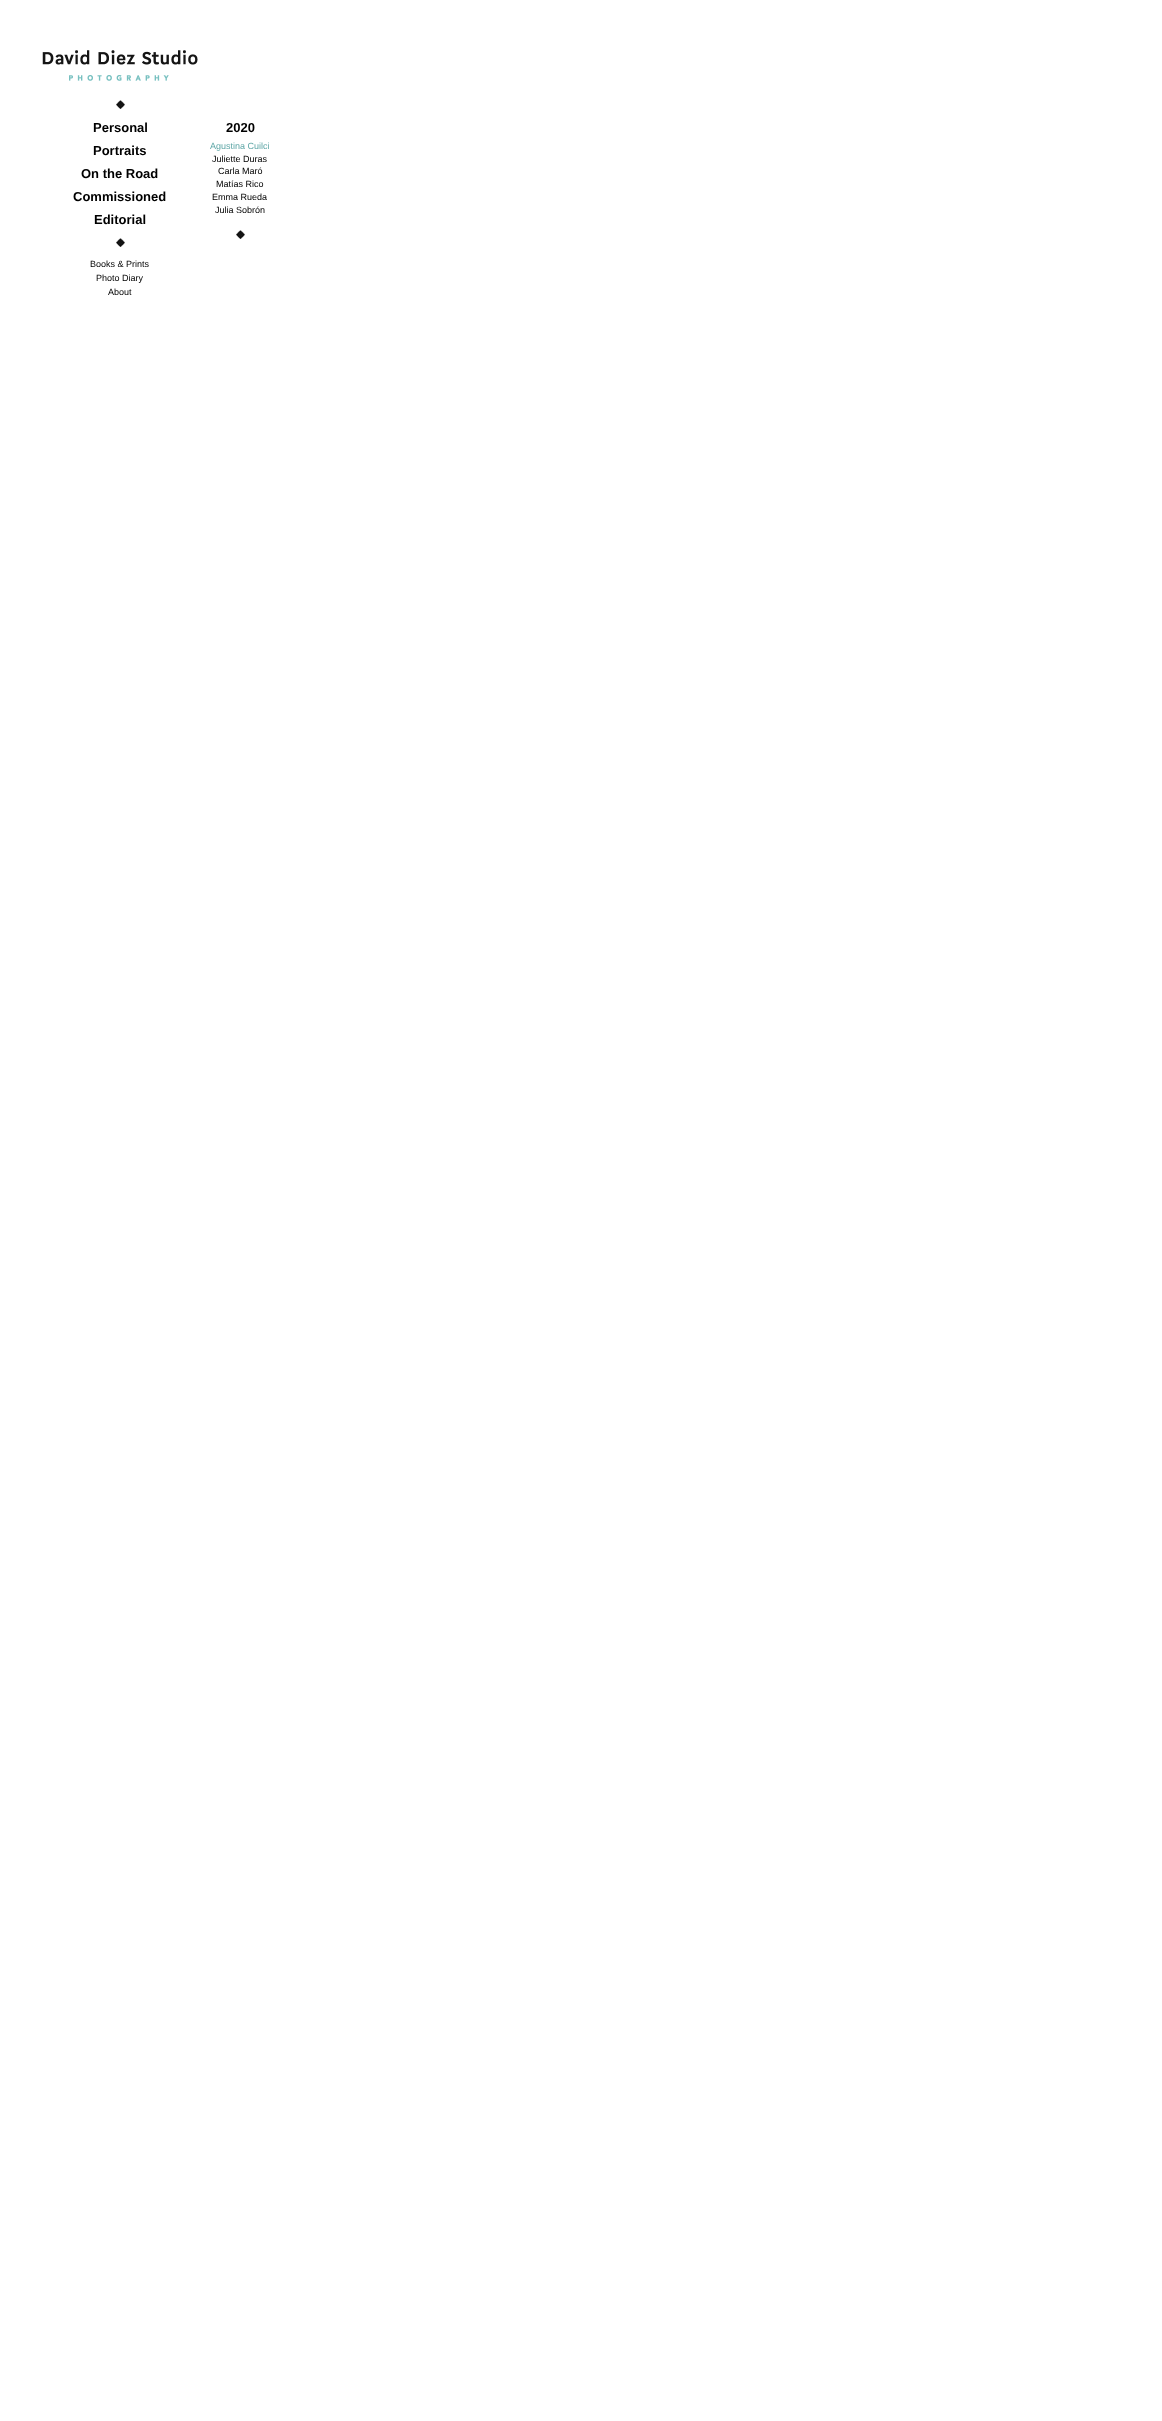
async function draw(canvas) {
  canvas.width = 1162;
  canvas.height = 2421;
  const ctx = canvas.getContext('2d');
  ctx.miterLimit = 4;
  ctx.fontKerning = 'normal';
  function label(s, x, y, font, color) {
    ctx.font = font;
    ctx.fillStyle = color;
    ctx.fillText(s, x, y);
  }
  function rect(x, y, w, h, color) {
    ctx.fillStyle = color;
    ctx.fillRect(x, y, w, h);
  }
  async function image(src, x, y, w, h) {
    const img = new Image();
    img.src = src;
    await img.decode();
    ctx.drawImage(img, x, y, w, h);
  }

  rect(0, 0, 1162, 2421, '#fff');
  await image('assets/img1.png', 42, 50, 156, 31);
  await image('assets/img2.png', 116, 100, 9, 9);
  label('Personal', 93, 132, 'bold 13px Liberation Sans', '#000');
  label('Portraits', 93, 155, 'bold 13px Liberation Sans', '#000');
  label('On the Road', 81, 178, 'bold 13px Liberation Sans', '#000');
  label('Commissioned', 73, 201, 'bold 13px Liberation Sans', '#000');
  label('Editorial', 94, 224, 'bold 13px Liberation Sans', '#000');
  await image('assets/img2.png', 116, 238, 9, 9);
  label('Books & Prints', 90, 267, '9px Liberation Sans', '#000');
  label('Photo Diary', 96, 281, '9px Liberation Sans', '#000');
  label('About', 108, 295, '9px Liberation Sans', '#000');
  label('2020', 226, 132, 'bold 13px Liberation Sans', '#000');
  label('Agustina Cuilci', 210, 149, '9px Liberation Sans', '#61a8a8');
  label('Juliette Duras', 212, 162, '9px Liberation Sans', '#000');
  label('Carla Maró', 218, 174, '9px Liberation Sans', '#000');
  label('Matías Rico', 216, 187, '9px Liberation Sans', '#000');
  label('Emma Rueda', 212, 200, '9px Liberation Sans', '#000');
  label('Julia Sobrón', 215, 213, '9px Liberation Sans', '#000');
  await image('assets/img2.png', 236, 230, 9, 9);
}

draw(document.querySelector('canvas'));
